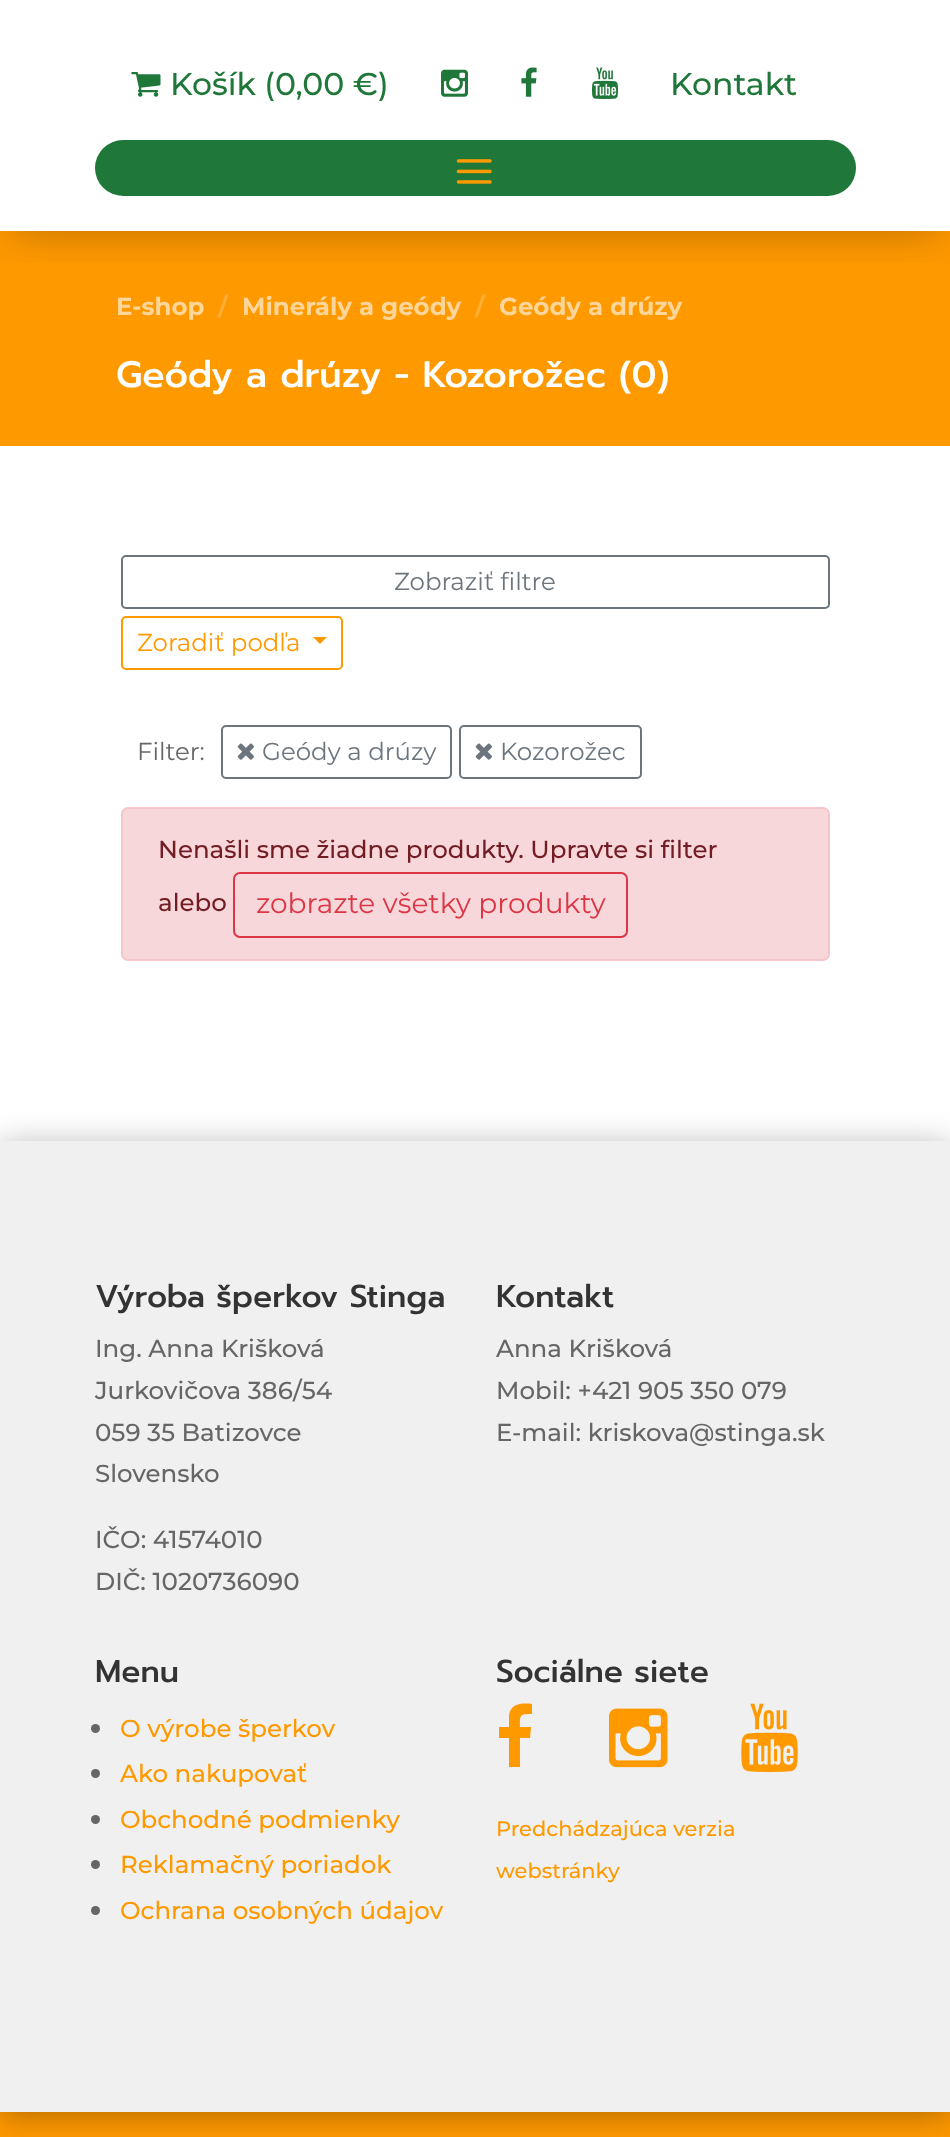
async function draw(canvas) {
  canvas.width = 950;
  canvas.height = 2137;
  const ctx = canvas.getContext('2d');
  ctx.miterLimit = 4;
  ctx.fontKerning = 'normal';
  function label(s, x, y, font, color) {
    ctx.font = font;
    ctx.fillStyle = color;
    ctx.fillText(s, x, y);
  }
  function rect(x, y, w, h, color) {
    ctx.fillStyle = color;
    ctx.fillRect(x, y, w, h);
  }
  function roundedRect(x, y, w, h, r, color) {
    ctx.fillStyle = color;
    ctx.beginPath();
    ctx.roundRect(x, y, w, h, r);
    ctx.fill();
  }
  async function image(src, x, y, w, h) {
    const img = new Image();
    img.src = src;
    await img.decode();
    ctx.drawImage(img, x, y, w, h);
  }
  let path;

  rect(0, 0, 950, 2137, '#fff');
  rect(0, 231, 950, 215, '#f90');
  ctx.save();
  ctx.beginPath();
  ctx.rect(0, 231, 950, 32);
  ctx.clip();
  ctx.fillStyle = '#0000004d';
  ctx.filter = 'blur(23.5px)';
  ctx.beginPath();
  ctx.rect(11, -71, 929, 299);
  ctx.fill();
  ctx.filter = 'none';
  ctx.restore();
  await image('assets/img1.png', 131, 72, 30, 25);
  label('Košík (0,00 €)', 170, 95, '500 31.5px Montserrat', '#20773a');
  await image('assets/img2.png', 441, 69, 27, 28);
  await image('assets/img3.png', 521, 67, 16, 30);
  await image('assets/img4.png', 592, 67, 26, 32);
  label('Kontakt', 670, 95, '500 31.5px Montserrat', '#20773a');
  roundedRect(95, 140, 761, 56, 28, '#20773a');
  await image('assets/img5.png', 456, 159, 36, 25);
  label('E-shop', 116, 315, 'bold 24.5px Montserrat', '#ffd699');
  label('/', 218, 315, 'bold 24.5px Montserrat', '#ffad33');
  label('Minerály a geódy', 242, 315, 'bold 24.5px Montserrat', '#ffd699');
  label('/', 475, 315, 'bold 24.5px Montserrat', '#ffad33');
  label('Geódy a drúzy', 499, 315, 'bold 24.5px Montserrat', '#ffd699');
  label('Geódy a drúzy - Kozorožec (0)', 116, 387, '500 36.75px Prompt', '#fff');
  ctx.beginPath();
  ctx.roundRect(122, 556, 707, 52, 4);
  ctx.strokeStyle = '#6c757d';
  ctx.lineWidth = 2;
  ctx.stroke();
  label('Zobraziť filtre', 394, 590, '24.5px Montserrat', '#6c757d');
  ctx.beginPath();
  ctx.roundRect(122, 617, 220, 52, 4);
  ctx.strokeStyle = '#f90';
  ctx.stroke();
  label('Zoradiť podľa', 137, 651, '24.5px Montserrat', '#f90');
  path = new Path2D('M313 637H327L320 644Z');
  ctx.fill(path);
  label('Filter:', 137, 760, '24.5px Montserrat', '#666');
  ctx.beginPath();
  ctx.roundRect(222, 726, 229, 52, 4);
  ctx.strokeStyle = '#6c757d';
  ctx.stroke();
  await image('assets/img6.png', 237, 743, 17, 17);
  label('Geódy a drúzy', 262, 760, '24.5px Montserrat', '#6c757d');
  ctx.beginPath();
  ctx.roundRect(460, 726, 181, 52, 4);
  ctx.stroke();
  await image('assets/img6.png', 475, 743, 17, 17);
  label('Kozorožec', 500, 760, '24.5px Montserrat', '#6c757d');
  ctx.fillStyle = '#f8d7da';
  ctx.beginPath();
  ctx.roundRect(122, 808, 707, 152, 6);
  ctx.fill();
  ctx.strokeStyle = '#f5c6cb';
  ctx.stroke();
  label('Nenašli sme žiadne produkty. Upravte si filter', 158, 858, '500 24.5px Montserrat', '#721c24');
  label('alebo', 158, 911, '500 24.5px Montserrat', '#721c24');
  ctx.beginPath();
  ctx.roundRect(234, 873, 393, 64, 6);
  ctx.strokeStyle = '#dc3545';
  ctx.stroke();
  label('zobrazte všetky produkty', 256, 913, '28px Montserrat', '#dc3545');
  rect(0, 2112, 950, 25, '#f90');
  ctx.fillStyle = '#0000004d';
  ctx.filter = 'blur(16px)';
  ctx.beginPath();
  ctx.rect(0, 1145, 950, 971);
  ctx.fill();
  ctx.filter = 'none';
  rect(0, 1141, 950, 971, '#f0f0f0');
  label('Výroba šperkov Stinga', 95, 1307, '500 31.5px Prompt', '#333');
  label('Ing. Anna Krišková', 95, 1357, '500 24.5px Montserrat', '#666');
  label('Jurkovičova 386/54', 95, 1399, '500 24.5px Montserrat', '#666');
  label('059 35 Batizovce', 95, 1441, '500 24.5px Montserrat', '#666');
  label('Slovensko', 95, 1482, '500 24.5px Montserrat', '#666');
  label('IČO: 41574010', 95, 1548, '500 24.5px Montserrat', '#666');
  label('DIČ: 1020736090', 95, 1590, '500 24.5px Montserrat', '#666');
  label('Kontakt', 496, 1307, '500 31.5px Prompt', '#333');
  label('Anna Krišková', 496, 1357, '500 24.5px Montserrat', '#666');
  label('Mobil: +421 905 350 079', 496, 1399, '500 24.5px Montserrat', '#666');
  label('E-mail: kriskova@stinga.sk', 496, 1441, '500 24.5px Montserrat', '#666');
  label('Menu', 95, 1682, '500 31.5px Prompt', '#333');
  ctx.fillStyle = '#666';
  ctx.beginPath();
  ctx.arc(95.5, 1728.5, 4.5, 0, 2 * Math.PI);
  ctx.fill();
  label('O výrobe šperkov', 120, 1737, '500 24.5px Montserrat', '#f90');
  ctx.fillStyle = '#666';
  ctx.beginPath();
  ctx.arc(95.5, 1773.5, 4.5, 0, 2 * Math.PI);
  ctx.fill();
  label('Ako nakupovať', 120, 1782, '500 24.5px Montserrat', '#f90');
  ctx.fillStyle = '#666';
  ctx.beginPath();
  ctx.arc(95.5, 1819.5, 4.5, 0, 2 * Math.PI);
  ctx.fill();
  label('Obchodné podmienky', 120, 1828, '500 24.5px Montserrat', '#f90');
  ctx.fillStyle = '#666';
  ctx.beginPath();
  ctx.arc(95.5, 1864.5, 4.5, 0, 2 * Math.PI);
  ctx.fill();
  label('Reklamačný poriadok', 120, 1873, '500 24.5px Montserrat', '#f90');
  ctx.fillStyle = '#666';
  ctx.beginPath();
  ctx.arc(95.5, 1910.5, 4.5, 0, 2 * Math.PI);
  ctx.fill();
  label('Ochrana osobných údajov', 120, 1919, '500 24.5px Montserrat', '#f90');
  label('Sociálne siete', 496, 1682, '500 31.5px Prompt', '#333');
  ctx.fillStyle = '#f90';
  path = new Path2D('M532 1704V1714C519 1714 520 1715 520 1727H531L530 1738H520V1767H509V1738H499V1727H509V1715C511 1703 522 1703 532 1704Z');
  ctx.fill(path);
  await image('assets/img7.png', 609, 1708, 59, 60);
  await image('assets/img8.png', 741, 1703, 57, 69);
  label('Predchádzajúca verzia', 496, 1836, '500 21px Montserrat', '#f90');
  label('webstránky', 496, 1878, '500 21px Montserrat', '#f90');
}

draw(document.querySelector('canvas'));
